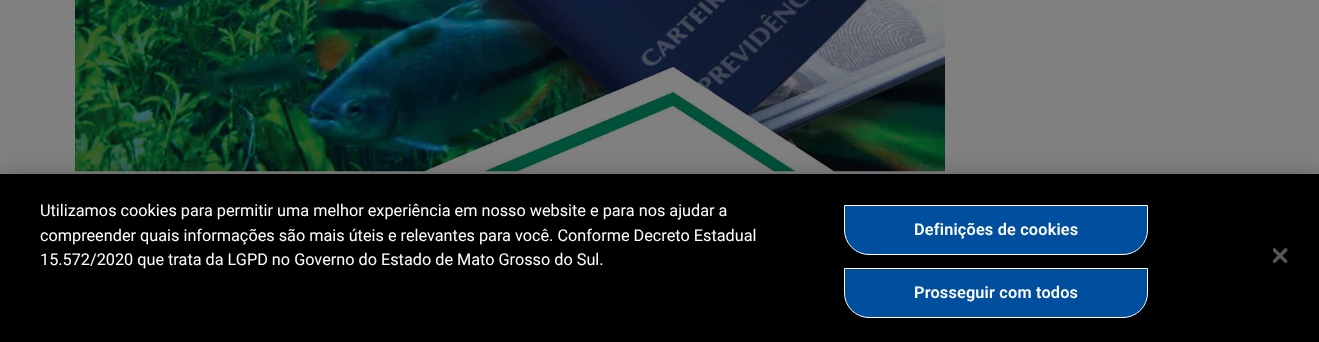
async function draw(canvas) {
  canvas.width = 1319;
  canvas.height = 342;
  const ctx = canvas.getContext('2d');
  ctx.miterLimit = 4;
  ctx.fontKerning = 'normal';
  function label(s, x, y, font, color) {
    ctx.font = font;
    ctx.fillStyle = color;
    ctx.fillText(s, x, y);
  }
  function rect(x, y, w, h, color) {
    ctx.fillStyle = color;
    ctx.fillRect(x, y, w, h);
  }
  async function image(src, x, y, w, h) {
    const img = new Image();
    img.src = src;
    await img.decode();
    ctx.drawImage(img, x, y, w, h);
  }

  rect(0, 0, 1319, 342, '#808080');
  await image('assets/img1.png', 75, 0, 870, 172);
  ctx.fillStyle = '#00000033';
  ctx.filter = 'blur(11px)';
  ctx.beginPath();
  ctx.rect(0, 174, 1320, 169);
  ctx.fill();
  ctx.filter = 'none';
  rect(0, 174, 1319, 168, '#000');
  label('Utilizamos cookies para permitir uma melhor experiência em nosso website e para nos ajudar a', 40, 216, '16.25px Roboto', '#fff');
  label('compreender quais informações são mais úteis e relevantes para você. Conforme Decreto Estadual', 40, 241, '16.25px Roboto', '#fff');
  label('15.572/2020 que trata da LGPD no Governo do Estado de Mato Grosso do Sul.', 40, 265, '16.25px Roboto', '#fff');
  ctx.fillStyle = '#004f9f';
  ctx.beginPath();
  ctx.roundRect(844.5, 205.5, 303, 49, [0, 0, 24.5, 24.5]);
  ctx.fill();
  ctx.strokeStyle = '#fff';
  ctx.stroke();
  ctx.letterSpacing = '0.2px';
  label('Definições de cookies', 914, 235, '600 16.25px Roboto', '#fff');
  ctx.fillStyle = '#004f9f';
  ctx.beginPath();
  ctx.roundRect(844.5, 268.5, 303, 49, [0, 0, 24.5, 24.5]);
  ctx.fill();
  ctx.stroke();
  label('Prosseguir com todos', 914, 298, '600 16.25px Roboto', '#fff');
  await image('assets/img2.png', 1273, 248, 15, 15);
}

draw(document.querySelector('canvas'));
